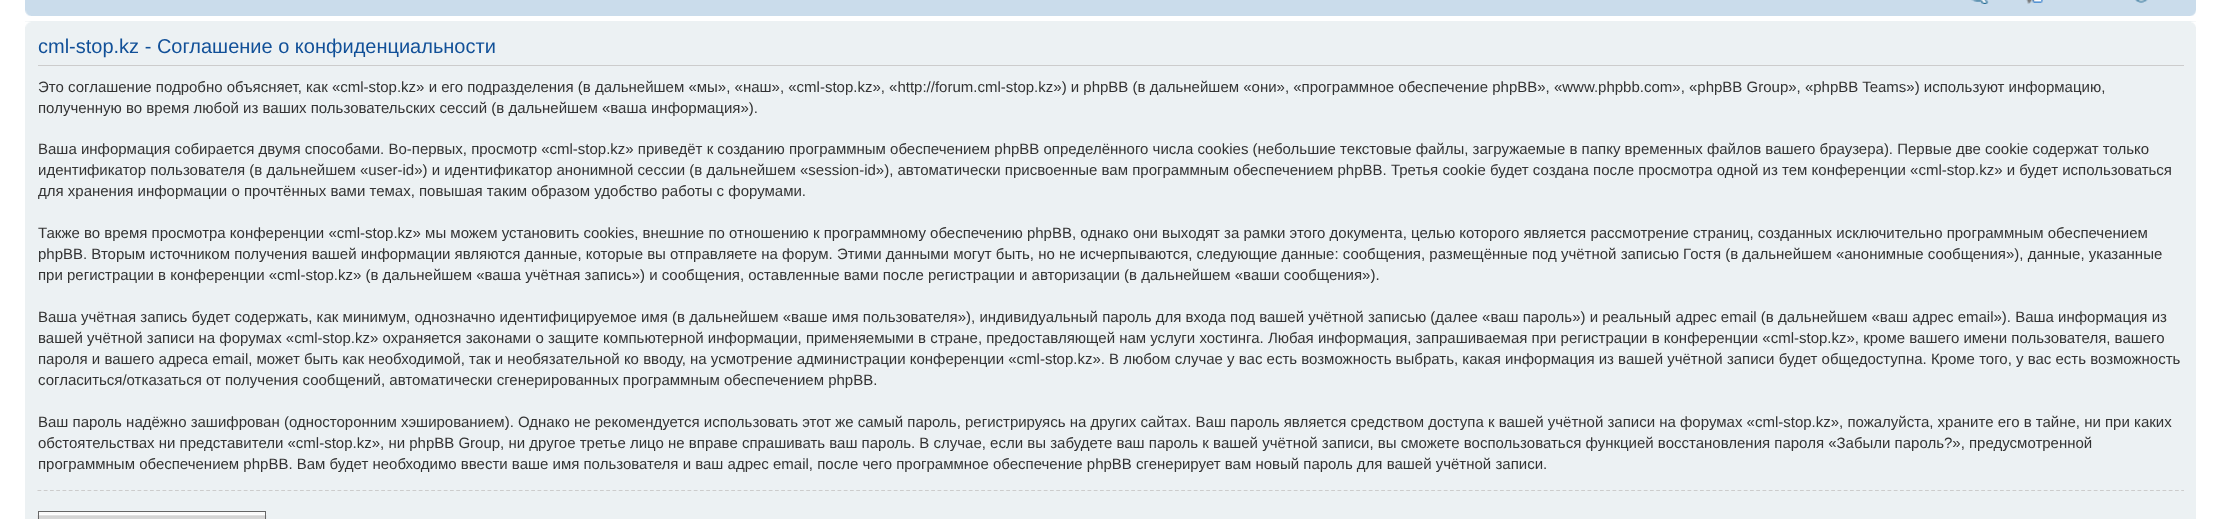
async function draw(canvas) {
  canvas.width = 2221;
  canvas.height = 519;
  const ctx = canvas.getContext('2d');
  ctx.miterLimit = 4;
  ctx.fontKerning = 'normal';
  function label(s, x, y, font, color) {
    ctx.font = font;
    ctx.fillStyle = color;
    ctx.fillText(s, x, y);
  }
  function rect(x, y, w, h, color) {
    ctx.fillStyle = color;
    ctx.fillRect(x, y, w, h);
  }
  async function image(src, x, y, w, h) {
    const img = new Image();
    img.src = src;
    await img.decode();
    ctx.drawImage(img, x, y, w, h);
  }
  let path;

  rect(0, 0, 2221, 519, '#fff');
  rect(25, 0, 2171, 16, '#cadceb');
  await image('assets/img1.png', 1971, 0, 18, 4);
  await image('assets/img2.png', 2026, 0, 17, 4);
  await image('assets/img3.png', 2135, 0, 13, 3);
  await image('assets/img4.png', 25, 10, 6, 6);
  await image('assets/img5.png', 2190, 10, 6, 6);
  rect(25, 21, 2171, 498, '#ecf1f3');
  await image('assets/img6.png', 25, 21, 6, 6);
  await image('assets/img7.png', 2191, 21, 5, 6);
  rect(38, 65, 2146, 1, '#ccc');
  label('cml-stop.kz - Соглашение о конфиденциальности', 38, 53, '20px Liberation Sans', '#115098');
  label('Это соглашение подробно объясняет, как «cml-stop.kz» и его подразделения (в дальнейшем «мы», «наш», «cml-stop.kz», «http://forum.cml-stop.kz») и phpBB (в дальнейшем «они», «программное обеспечение phpBB», «www.phpbb.com», «phpBB Group», «phpBB Teams») используют информацию,', 38, 92, '15px Liberation Sans', '#333');
  label('полученную во время любой из ваших пользовательских сессий (в дальнейшем «ваша информация»).', 38, 113, '15px Liberation Sans', '#333');
  label('Ваша информация собирается двумя способами. Во-первых, просмотр «cml-stop.kz» приведёт к созданию программным обеспечением phpBB определённого числа cookies (небольшие текстовые файлы, загружаемые в папку временных файлов вашего браузера). Первые две cookie содержат только', 38, 154, '15px Liberation Sans', '#333');
  label('идентификатор пользователя (в дальнейшем «user-id») и идентификатор анонимной сессии (в дальнейшем «session-id»), автоматически присвоенные вам программным обеспечением phpBB. Третья cookie будет создана после просмотра одной из тем конференции «cml-stop.kz» и будет использоваться', 38, 175, '15px Liberation Sans', '#333');
  ctx.save();
  ctx.beginPath();
  ctx.rect(38, 28, 2146, 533);
  ctx.clip();
  label('для хранения информации о прочтённых вами темах, повышая таким образом удобство работы с форумами.', 38, 196, '15px Liberation Sans', '#333');
  ctx.restore();
  label('Также во время просмотра конференции «cml-stop.kz» мы можем установить cookies, внешние по отношению к программному обеспечению phpBB, однако они выходят за рамки этого документа, целью которого является рассмотрение страниц, созданных исключительно программным обеспечением', 38, 238, '15px Liberation Sans', '#333');
  label('phpBB. Вторым источником получения вашей информации являются данные, которые вы отправляете на форум. Этими данными могут быть, но не исчерпываются, следующие данные: сообщения, размещённые под учётной записью Гостя (в дальнейшем «анонимные сообщения»), данные, указанные', 38, 259, '15px Liberation Sans', '#333');
  label('при регистрации в конференции «cml-stop.kz» (в дальнейшем «ваша учётная запись») и сообщения, оставленные вами после регистрации и авторизации (в дальнейшем «ваши сообщения»).', 38, 280, '15px Liberation Sans', '#333');
  label('Ваша учётная запись будет содержать, как минимум, однозначно идентифицируемое имя (в дальнейшем «ваше имя пользователя»), индивидуальный пароль для входа под вашей учётной записью (далее «ваш пароль») и реальный адрес email (в дальнейшем «ваш адрес email»). Ваша информация из', 38, 322, '15px Liberation Sans', '#333');
  label('вашей учётной записи на форумах «cml-stop.kz» охраняется законами о защите компьютерной информации, применяемыми в стране, предоставляющей нам услуги хостинга. Любая информация, запрашиваемая при регистрации в конференции «cml-stop.kz», кроме вашего имени пользователя, вашего', 38, 343, '15px Liberation Sans', '#333');
  label('пароля и вашего адреса email, может быть как необходимой, так и необязательной ко вводу, на усмотрение администрации конференции «cml-stop.kz». В любом случае у вас есть возможность выбрать, какая информация из вашей учётной записи будет общедоступна. Кроме того, у вас есть возможность', 38, 364, '15px Liberation Sans', '#333');
  label('согласиться/отказаться от получения сообщений, автоматически сгенерированных программным обеспечением phpBB.', 38, 385, '15px Liberation Sans', '#333');
  label('Ваш пароль надёжно зашифрован (односторонним хэшированием). Однако не рекомендуется использовать этот же самый пароль, регистрируясь на других сайтах. Ваш пароль является средством доступа к вашей учётной записи на форумах «cml-stop.kz», пожалуйста, храните его в тайне, ни при каких', 38, 427, '15px Liberation Sans', '#333');
  label('обстоятельствах ни представители «cml-stop.kz», ни phpBB Group, ни другое третье лицо не вправе спрашивать ваш пароль. В случае, если вы забудете ваш пароль к вашей учётной записи, вы сможете воспользоваться функцией восстановления пароля «Забыли пароль?», предусмотренной', 38, 448, '15px Liberation Sans', '#333');
  label('программным обеспечением phpBB. Вам будет необходимо ввести ваше имя пользователя и ваш адрес email, после чего программное обеспечение phpBB сгенерирует вам новый пароль для вашей учётной записи.', 38, 469, '15px Liberation Sans', '#333');
  path = new Path2D('M37.5 490.5H2184');
  ctx.strokeStyle = '#ccc';
  ctx.lineWidth = 1.2;
  ctx.setLineDash([3.75, 2.5]);
  ctx.stroke(path);
  rect(38, 512, 228, 2, '#fafafa');
  await image('assets/img8.png', 37, 514, 230, 5);
  ctx.strokeStyle = '#666';
  ctx.lineWidth = 1;
  ctx.setLineDash([]);
  ctx.strokeRect(38.5, 511.5, 227, 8);
}

draw(document.querySelector('canvas'));
